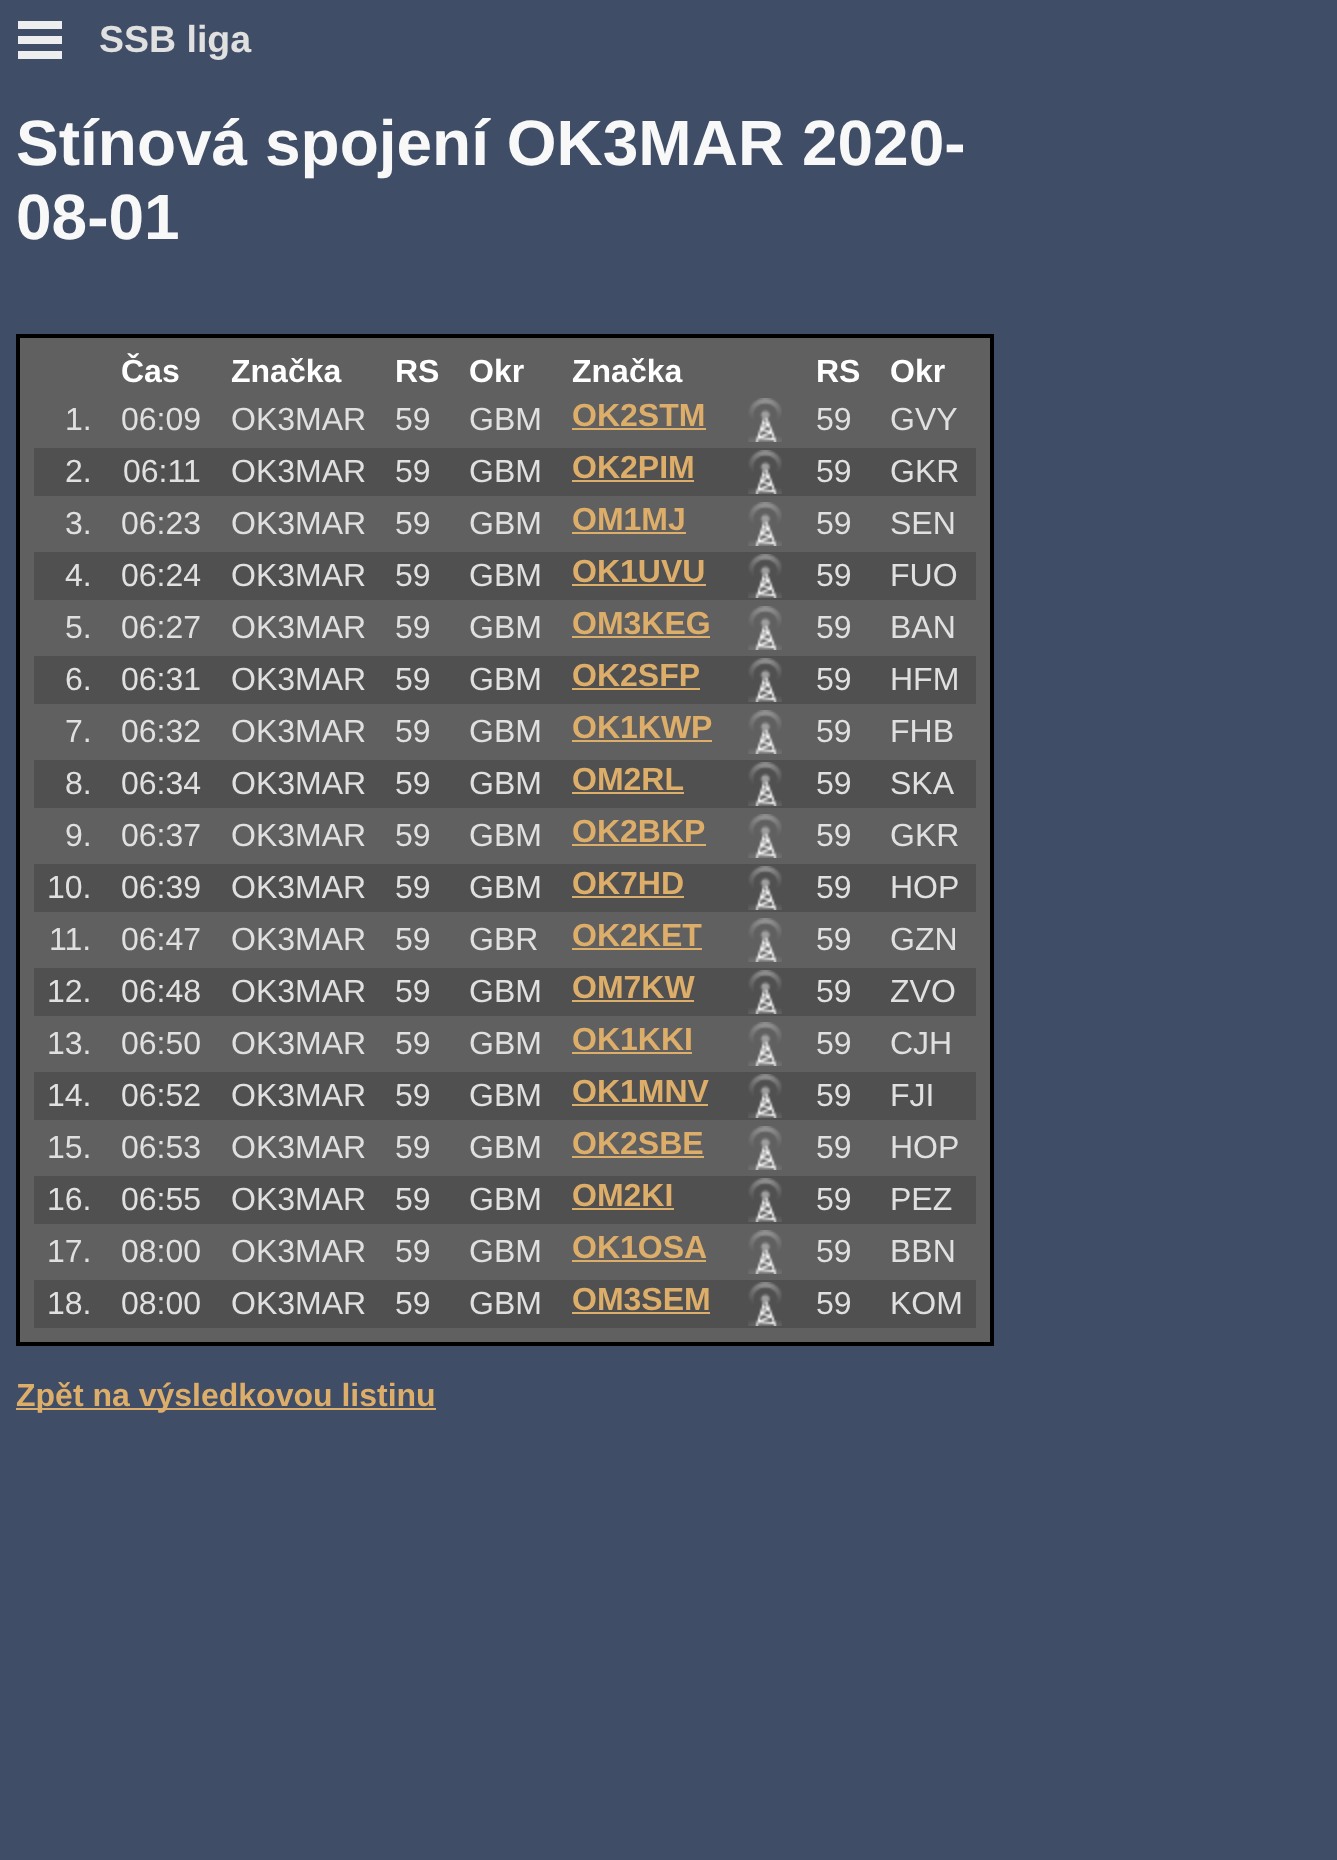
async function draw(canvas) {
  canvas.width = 1337;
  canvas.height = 1860;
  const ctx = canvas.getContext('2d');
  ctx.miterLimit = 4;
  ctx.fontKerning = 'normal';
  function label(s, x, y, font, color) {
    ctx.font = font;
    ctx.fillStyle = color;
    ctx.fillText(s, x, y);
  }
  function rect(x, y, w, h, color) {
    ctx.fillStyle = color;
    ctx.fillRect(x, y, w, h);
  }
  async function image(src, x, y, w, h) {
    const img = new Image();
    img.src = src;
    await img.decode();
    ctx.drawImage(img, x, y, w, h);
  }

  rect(0, 0, 1337, 1860, '#3f4e66');
  await image('assets/img1.png', 18, 21, 44, 38);
  label('SSB liga', 99, 52, 'bold 37.5px Liberation Sans', '#e0e0e0');
  label('Stínová spojení OK3MAR 2020-', 16, 165, 'bold 64px Liberation Sans', '#f8f8f8');
  label('08-01', 16, 239, 'bold 64px Liberation Sans', '#f8f8f8');
  ctx.fillStyle = '#606060';
  ctx.beginPath();
  ctx.rect(18, 336, 974, 1008);
  ctx.fill();
  ctx.strokeStyle = '#000';
  ctx.lineWidth = 4;
  ctx.stroke();
  label('Čas', 121, 382, 'bold 32px Liberation Sans', '#fff');
  label('Značka', 231, 382, 'bold 32px Liberation Sans', '#fff');
  label('RS', 395, 382, 'bold 32px Liberation Sans', '#fff');
  label('Okr', 469, 382, 'bold 32px Liberation Sans', '#fff');
  label('Značka', 572, 382, 'bold 32px Liberation Sans', '#fff');
  label('RS', 816, 382, 'bold 32px Liberation Sans', '#fff');
  label('Okr', 890, 382, 'bold 32px Liberation Sans', '#fff');
  label('1.', 65, 430, '32px Liberation Sans', '#e0e0e0');
  label('06:09', 121, 430, '32px Liberation Sans', '#e0e0e0');
  label('OK3MAR', 231, 430, '32px Liberation Sans', '#e0e0e0');
  label('59', 395, 430, '32px Liberation Sans', '#e0e0e0');
  label('GBM', 469, 430, '32px Liberation Sans', '#e0e0e0');
  label('OK2STM', 572, 426, 'bold 32px Liberation Sans', '#ddad6a');
  rect(572, 428, 134, 2, '#ddad6a');
  await image('assets/img2.png', 748, 398, 34, 44);
  label('59', 816, 430, '32px Liberation Sans', '#e0e0e0');
  label('GVY', 890, 430, '32px Liberation Sans', '#e0e0e0');
  rect(34, 448, 942, 48, '#505050');
  label('2.', 65, 482, '32px Liberation Sans', '#e0e0e0');
  label('06:11', 123, 482, '32px Liberation Sans', '#e0e0e0');
  label('OK3MAR', 231, 482, '32px Liberation Sans', '#e0e0e0');
  label('59', 395, 482, '32px Liberation Sans', '#e0e0e0');
  label('GBM', 469, 482, '32px Liberation Sans', '#e0e0e0');
  label('OK2PIM', 572, 478, 'bold 32px Liberation Sans', '#ddad6a');
  rect(572, 480, 122, 2, '#ddad6a');
  await image('assets/img3.png', 748, 450, 34, 44);
  label('59', 816, 482, '32px Liberation Sans', '#e0e0e0');
  label('GKR', 890, 482, '32px Liberation Sans', '#e0e0e0');
  label('3.', 65, 534, '32px Liberation Sans', '#e0e0e0');
  label('06:23', 121, 534, '32px Liberation Sans', '#e0e0e0');
  label('OK3MAR', 231, 534, '32px Liberation Sans', '#e0e0e0');
  label('59', 395, 534, '32px Liberation Sans', '#e0e0e0');
  label('GBM', 469, 534, '32px Liberation Sans', '#e0e0e0');
  label('OM1MJ', 572, 530, 'bold 32px Liberation Sans', '#ddad6a');
  rect(572, 532, 114, 2, '#ddad6a');
  await image('assets/img2.png', 748, 502, 34, 44);
  label('59', 816, 534, '32px Liberation Sans', '#e0e0e0');
  label('SEN', 890, 534, '32px Liberation Sans', '#e0e0e0');
  rect(34, 552, 942, 48, '#505050');
  label('4.', 65, 586, '32px Liberation Sans', '#e0e0e0');
  label('06:24', 121, 586, '32px Liberation Sans', '#e0e0e0');
  label('OK3MAR', 231, 586, '32px Liberation Sans', '#e0e0e0');
  label('59', 395, 586, '32px Liberation Sans', '#e0e0e0');
  label('GBM', 469, 586, '32px Liberation Sans', '#e0e0e0');
  label('OK1UVU', 572, 582, 'bold 32px Liberation Sans', '#ddad6a');
  rect(572, 584, 134, 2, '#ddad6a');
  await image('assets/img3.png', 748, 554, 34, 44);
  label('59', 816, 586, '32px Liberation Sans', '#e0e0e0');
  label('FUO', 890, 586, '32px Liberation Sans', '#e0e0e0');
  label('5.', 65, 638, '32px Liberation Sans', '#e0e0e0');
  label('06:27', 121, 638, '32px Liberation Sans', '#e0e0e0');
  label('OK3MAR', 231, 638, '32px Liberation Sans', '#e0e0e0');
  label('59', 395, 638, '32px Liberation Sans', '#e0e0e0');
  label('GBM', 469, 638, '32px Liberation Sans', '#e0e0e0');
  label('OM3KEG', 572, 634, 'bold 32px Liberation Sans', '#ddad6a');
  rect(572, 636, 138, 2, '#ddad6a');
  await image('assets/img2.png', 748, 606, 34, 44);
  label('59', 816, 638, '32px Liberation Sans', '#e0e0e0');
  label('BAN', 890, 638, '32px Liberation Sans', '#e0e0e0');
  rect(34, 656, 942, 48, '#505050');
  label('6.', 65, 690, '32px Liberation Sans', '#e0e0e0');
  label('06:31', 121, 690, '32px Liberation Sans', '#e0e0e0');
  label('OK3MAR', 231, 690, '32px Liberation Sans', '#e0e0e0');
  label('59', 395, 690, '32px Liberation Sans', '#e0e0e0');
  label('GBM', 469, 690, '32px Liberation Sans', '#e0e0e0');
  label('OK2SFP', 572, 686, 'bold 32px Liberation Sans', '#ddad6a');
  rect(572, 688, 128, 2, '#ddad6a');
  await image('assets/img3.png', 748, 658, 34, 44);
  label('59', 816, 690, '32px Liberation Sans', '#e0e0e0');
  label('HFM', 890, 690, '32px Liberation Sans', '#e0e0e0');
  label('7.', 65, 742, '32px Liberation Sans', '#e0e0e0');
  label('06:32', 121, 742, '32px Liberation Sans', '#e0e0e0');
  label('OK3MAR', 231, 742, '32px Liberation Sans', '#e0e0e0');
  label('59', 395, 742, '32px Liberation Sans', '#e0e0e0');
  label('GBM', 469, 742, '32px Liberation Sans', '#e0e0e0');
  label('OK1KWP', 572, 738, 'bold 32px Liberation Sans', '#ddad6a');
  rect(572, 740, 140, 2, '#ddad6a');
  await image('assets/img2.png', 748, 710, 34, 44);
  label('59', 816, 742, '32px Liberation Sans', '#e0e0e0');
  label('FHB', 890, 742, '32px Liberation Sans', '#e0e0e0');
  rect(34, 760, 942, 48, '#505050');
  label('8.', 65, 794, '32px Liberation Sans', '#e0e0e0');
  label('06:34', 121, 794, '32px Liberation Sans', '#e0e0e0');
  label('OK3MAR', 231, 794, '32px Liberation Sans', '#e0e0e0');
  label('59', 395, 794, '32px Liberation Sans', '#e0e0e0');
  label('GBM', 469, 794, '32px Liberation Sans', '#e0e0e0');
  label('OM2RL', 572, 790, 'bold 32px Liberation Sans', '#ddad6a');
  rect(572, 792, 112, 2, '#ddad6a');
  await image('assets/img3.png', 748, 762, 34, 44);
  label('59', 816, 794, '32px Liberation Sans', '#e0e0e0');
  label('SKA', 890, 794, '32px Liberation Sans', '#e0e0e0');
  label('9.', 65, 846, '32px Liberation Sans', '#e0e0e0');
  label('06:37', 121, 846, '32px Liberation Sans', '#e0e0e0');
  label('OK3MAR', 231, 846, '32px Liberation Sans', '#e0e0e0');
  label('59', 395, 846, '32px Liberation Sans', '#e0e0e0');
  label('GBM', 469, 846, '32px Liberation Sans', '#e0e0e0');
  label('OK2BKP', 572, 842, 'bold 32px Liberation Sans', '#ddad6a');
  rect(572, 844, 134, 2, '#ddad6a');
  await image('assets/img2.png', 748, 814, 34, 44);
  label('59', 816, 846, '32px Liberation Sans', '#e0e0e0');
  label('GKR', 890, 846, '32px Liberation Sans', '#e0e0e0');
  rect(34, 864, 942, 48, '#505050');
  label('10.', 47, 898, '32px Liberation Sans', '#e0e0e0');
  label('06:39', 121, 898, '32px Liberation Sans', '#e0e0e0');
  label('OK3MAR', 231, 898, '32px Liberation Sans', '#e0e0e0');
  label('59', 395, 898, '32px Liberation Sans', '#e0e0e0');
  label('GBM', 469, 898, '32px Liberation Sans', '#e0e0e0');
  label('OK7HD', 572, 894, 'bold 32px Liberation Sans', '#ddad6a');
  rect(572, 896, 112, 2, '#ddad6a');
  await image('assets/img3.png', 748, 866, 34, 44);
  label('59', 816, 898, '32px Liberation Sans', '#e0e0e0');
  label('HOP', 890, 898, '32px Liberation Sans', '#e0e0e0');
  label('11.', 49, 950, '32px Liberation Sans', '#e0e0e0');
  label('06:47', 121, 950, '32px Liberation Sans', '#e0e0e0');
  label('OK3MAR', 231, 950, '32px Liberation Sans', '#e0e0e0');
  label('59', 395, 950, '32px Liberation Sans', '#e0e0e0');
  label('GBR', 469, 950, '32px Liberation Sans', '#e0e0e0');
  label('OK2KET', 572, 946, 'bold 32px Liberation Sans', '#ddad6a');
  rect(572, 948, 130, 2, '#ddad6a');
  await image('assets/img2.png', 748, 918, 34, 44);
  label('59', 816, 950, '32px Liberation Sans', '#e0e0e0');
  label('GZN', 890, 950, '32px Liberation Sans', '#e0e0e0');
  rect(34, 968, 942, 48, '#505050');
  label('12.', 47, 1002, '32px Liberation Sans', '#e0e0e0');
  label('06:48', 121, 1002, '32px Liberation Sans', '#e0e0e0');
  label('OK3MAR', 231, 1002, '32px Liberation Sans', '#e0e0e0');
  label('59', 395, 1002, '32px Liberation Sans', '#e0e0e0');
  label('GBM', 469, 1002, '32px Liberation Sans', '#e0e0e0');
  label('OM7KW', 572, 998, 'bold 32px Liberation Sans', '#ddad6a');
  rect(572, 1000, 122, 2, '#ddad6a');
  await image('assets/img3.png', 748, 970, 34, 44);
  label('59', 816, 1002, '32px Liberation Sans', '#e0e0e0');
  label('ZVO', 890, 1002, '32px Liberation Sans', '#e0e0e0');
  label('13.', 47, 1054, '32px Liberation Sans', '#e0e0e0');
  label('06:50', 121, 1054, '32px Liberation Sans', '#e0e0e0');
  label('OK3MAR', 231, 1054, '32px Liberation Sans', '#e0e0e0');
  label('59', 395, 1054, '32px Liberation Sans', '#e0e0e0');
  label('GBM', 469, 1054, '32px Liberation Sans', '#e0e0e0');
  label('OK1KKI', 572, 1050, 'bold 32px Liberation Sans', '#ddad6a');
  rect(572, 1052, 120, 2, '#ddad6a');
  await image('assets/img2.png', 748, 1022, 34, 44);
  label('59', 816, 1054, '32px Liberation Sans', '#e0e0e0');
  label('CJH', 890, 1054, '32px Liberation Sans', '#e0e0e0');
  rect(34, 1072, 942, 48, '#505050');
  label('14.', 47, 1106, '32px Liberation Sans', '#e0e0e0');
  label('06:52', 121, 1106, '32px Liberation Sans', '#e0e0e0');
  label('OK3MAR', 231, 1106, '32px Liberation Sans', '#e0e0e0');
  label('59', 395, 1106, '32px Liberation Sans', '#e0e0e0');
  label('GBM', 469, 1106, '32px Liberation Sans', '#e0e0e0');
  label('OK1MNV', 572, 1102, 'bold 32px Liberation Sans', '#ddad6a');
  rect(572, 1104, 136, 2, '#ddad6a');
  await image('assets/img3.png', 748, 1074, 34, 44);
  label('59', 816, 1106, '32px Liberation Sans', '#e0e0e0');
  label('FJI', 890, 1106, '32px Liberation Sans', '#e0e0e0');
  label('15.', 47, 1158, '32px Liberation Sans', '#e0e0e0');
  label('06:53', 121, 1158, '32px Liberation Sans', '#e0e0e0');
  label('OK3MAR', 231, 1158, '32px Liberation Sans', '#e0e0e0');
  label('59', 395, 1158, '32px Liberation Sans', '#e0e0e0');
  label('GBM', 469, 1158, '32px Liberation Sans', '#e0e0e0');
  label('OK2SBE', 572, 1154, 'bold 32px Liberation Sans', '#ddad6a');
  rect(572, 1156, 132, 2, '#ddad6a');
  await image('assets/img2.png', 748, 1126, 34, 44);
  label('59', 816, 1158, '32px Liberation Sans', '#e0e0e0');
  label('HOP', 890, 1158, '32px Liberation Sans', '#e0e0e0');
  rect(34, 1176, 942, 48, '#505050');
  label('16.', 47, 1210, '32px Liberation Sans', '#e0e0e0');
  label('06:55', 121, 1210, '32px Liberation Sans', '#e0e0e0');
  label('OK3MAR', 231, 1210, '32px Liberation Sans', '#e0e0e0');
  label('59', 395, 1210, '32px Liberation Sans', '#e0e0e0');
  label('GBM', 469, 1210, '32px Liberation Sans', '#e0e0e0');
  label('OM2KI', 572, 1206, 'bold 32px Liberation Sans', '#ddad6a');
  rect(572, 1208, 102, 2, '#ddad6a');
  await image('assets/img3.png', 748, 1178, 34, 44);
  label('59', 816, 1210, '32px Liberation Sans', '#e0e0e0');
  label('PEZ', 890, 1210, '32px Liberation Sans', '#e0e0e0');
  label('17.', 47, 1262, '32px Liberation Sans', '#e0e0e0');
  label('08:00', 121, 1262, '32px Liberation Sans', '#e0e0e0');
  label('OK3MAR', 231, 1262, '32px Liberation Sans', '#e0e0e0');
  label('59', 395, 1262, '32px Liberation Sans', '#e0e0e0');
  label('GBM', 469, 1262, '32px Liberation Sans', '#e0e0e0');
  label('OK1OSA', 572, 1258, 'bold 32px Liberation Sans', '#ddad6a');
  rect(572, 1260, 134, 2, '#ddad6a');
  await image('assets/img2.png', 748, 1230, 34, 44);
  label('59', 816, 1262, '32px Liberation Sans', '#e0e0e0');
  label('BBN', 890, 1262, '32px Liberation Sans', '#e0e0e0');
  rect(34, 1280, 942, 48, '#505050');
  label('18.', 47, 1314, '32px Liberation Sans', '#e0e0e0');
  label('08:00', 121, 1314, '32px Liberation Sans', '#e0e0e0');
  label('OK3MAR', 231, 1314, '32px Liberation Sans', '#e0e0e0');
  label('59', 395, 1314, '32px Liberation Sans', '#e0e0e0');
  label('GBM', 469, 1314, '32px Liberation Sans', '#e0e0e0');
  label('OM3SEM', 572, 1310, 'bold 32px Liberation Sans', '#ddad6a');
  rect(572, 1312, 138, 2, '#ddad6a');
  await image('assets/img3.png', 748, 1282, 34, 44);
  label('59', 816, 1314, '32px Liberation Sans', '#e0e0e0');
  label('KOM', 890, 1314, '32px Liberation Sans', '#e0e0e0');
  rect(16, 1408, 420, 2, '#ddad6a');
  label('Zpět na výsledkovou listinu', 16, 1406, 'bold 32px Liberation Sans', '#ddad6a');
}

draw(document.querySelector('canvas'));
